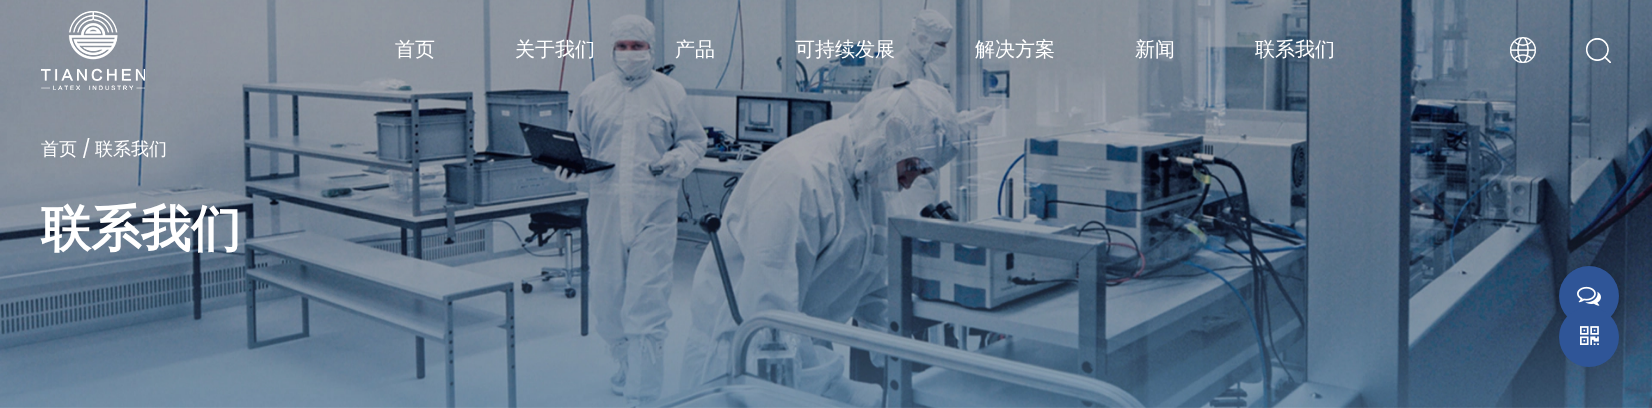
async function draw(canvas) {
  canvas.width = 1652;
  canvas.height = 408;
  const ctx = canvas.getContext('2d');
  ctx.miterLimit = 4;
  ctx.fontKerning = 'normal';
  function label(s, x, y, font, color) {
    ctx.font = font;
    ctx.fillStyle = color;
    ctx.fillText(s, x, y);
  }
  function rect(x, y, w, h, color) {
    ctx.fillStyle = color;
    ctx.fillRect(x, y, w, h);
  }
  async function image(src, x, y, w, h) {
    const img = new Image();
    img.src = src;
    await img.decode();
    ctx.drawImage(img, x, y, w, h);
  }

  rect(0, 0, 1652, 408, '#fff');
  await image('assets/img4.png', 0, 0, 1652, 408);
  await image('assets/img1.png', 41, 11, 104, 79);
  label('首页', 395, 56, '500 20px WenQuanYi Zen Hei', '#fff');
  label('关于我们', 515, 56, '500 20px WenQuanYi Zen Hei', '#fff');
  label('产品', 675, 56, '500 20px WenQuanYi Zen Hei', '#fff');
  label('可持续发展', 795, 56, '500 20px WenQuanYi Zen Hei', '#fff');
  label('解决方案', 975, 56, '500 20px WenQuanYi Zen Hei', '#fff');
  label('新闻', 1135, 56, '500 20px WenQuanYi Zen Hei', '#fff');
  label('联系我们', 1255, 56, '500 20px WenQuanYi Zen Hei', '#fff');
  await image('assets/img2.png', 1510, 37, 26, 26);
  await image('assets/img3.png', 1586, 38, 25, 25);
  label('首页', 41, 155, '500 18px WenQuanYi Zen Hei', '#fff');
  label('/', 82, 155, '18px Poppins', '#fff');
  label('联系我们', 95, 155, '500 18px WenQuanYi Zen Hei', '#fff');
  label('联系我们', 41, 246, 'bold 50px WenQuanYi Zen Hei', '#fff');
  ctx.fillStyle = '#0000004d';
  ctx.filter = 'blur(3.5px)';
  ctx.beginPath();
  ctx.roundRect(1559, 268, 60, 60, 30);
  ctx.fill();
  ctx.filter = 'none';
  ctx.fillStyle = '#2f5597';
  ctx.beginPath();
  ctx.arc(1589, 296, 30, 0, 2 * Math.PI);
  ctx.fill();
  await image('assets/img5.png', 1577, 286, 24, 20);
  ctx.beginPath();
  ctx.arc(1589, 337, 30, 0, 2 * Math.PI);
  ctx.fill();
  await image('assets/img6.png', 1580, 326, 19, 19);
}

draw(document.querySelector('canvas'));
